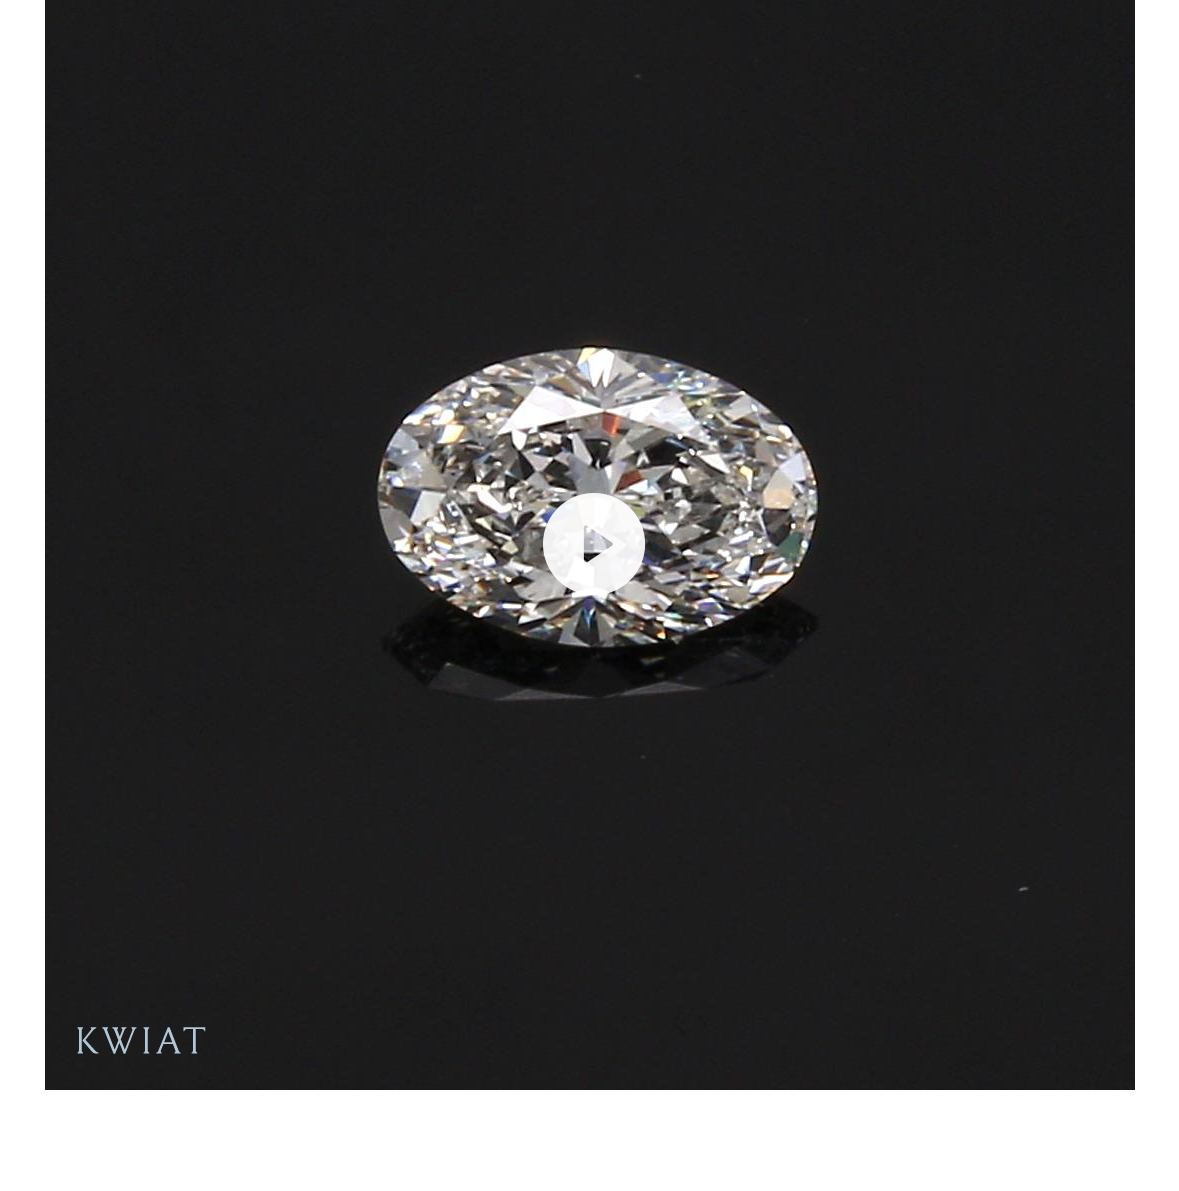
async function draw(canvas) {
  canvas.width = 1179;
  canvas.height = 1191;
  const ctx = canvas.getContext('2d');
  ctx.miterLimit = 4;
  ctx.fontKerning = 'normal';
  function rect(x, y, w, h, color) {
    ctx.fillStyle = color;
    ctx.fillRect(x, y, w, h);
  }
  async function image(src, x, y, w, h) {
    const img = new Image();
    img.src = src;
    await img.decode();
    ctx.drawImage(img, x, y, w, h);
  }

  rect(0, 0, 1179, 1191, '#fff');
  await image('assets/img1.png', 45, 0, 1090, 1090);
  await image('assets/img2.png', 77, 1027, 129, 27);
  await image('assets/img3.png', 543, 493, 103, 102);
}

draw(document.querySelector('canvas'));
